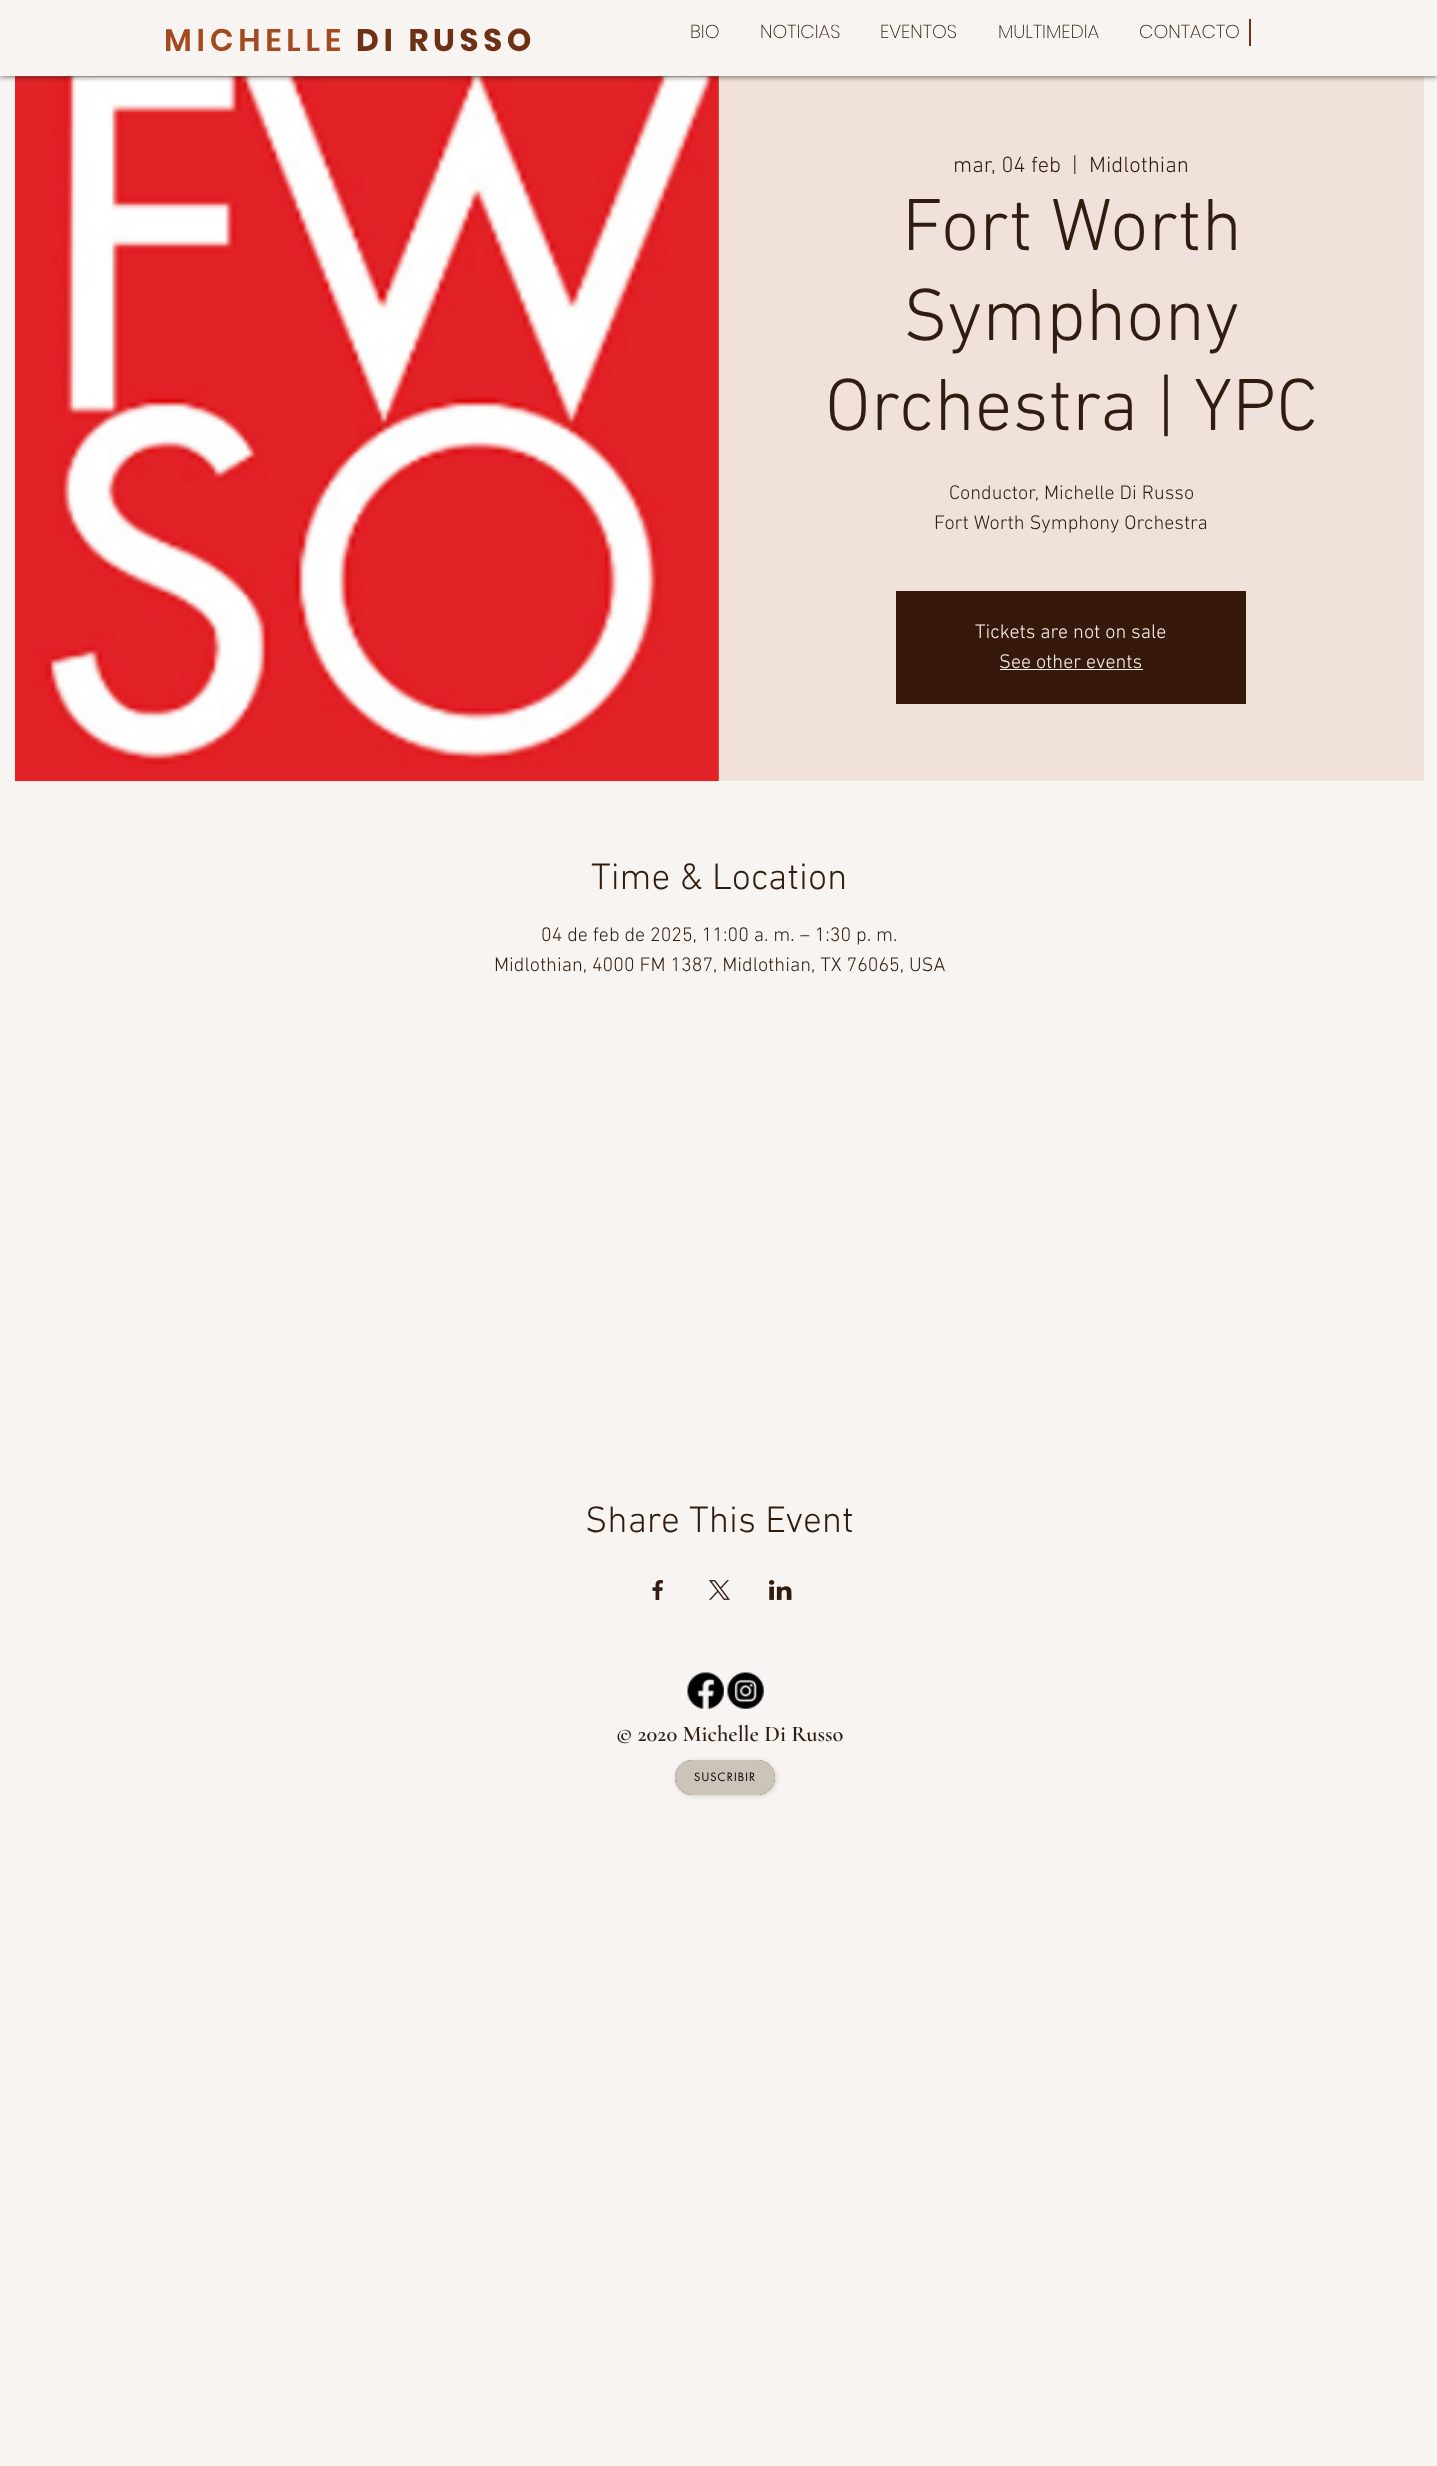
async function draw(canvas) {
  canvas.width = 1437;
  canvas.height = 2466;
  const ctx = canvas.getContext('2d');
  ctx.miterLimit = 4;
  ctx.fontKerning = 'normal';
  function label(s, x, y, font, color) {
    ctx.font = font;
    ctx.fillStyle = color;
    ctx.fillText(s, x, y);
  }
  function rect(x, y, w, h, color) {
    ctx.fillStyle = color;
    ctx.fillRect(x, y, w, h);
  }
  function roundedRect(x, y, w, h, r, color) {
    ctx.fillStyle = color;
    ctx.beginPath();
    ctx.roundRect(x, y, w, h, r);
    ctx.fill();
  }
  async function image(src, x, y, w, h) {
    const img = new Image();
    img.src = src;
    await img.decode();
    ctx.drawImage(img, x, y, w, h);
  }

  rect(0, 0, 1437, 2466, '#f8f4f1');
  rect(15, 76, 704, 705, '#c28d74');
  await image('assets/img1.png', 15, 76, 704, 706);
  rect(719, 76, 705, 705, '#f0e1db');
  ctx.save();
  ctx.beginPath();
  ctx.rect(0, 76, 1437, 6);
  ctx.clip();
  ctx.fillStyle = '#000000b3';
  ctx.filter = 'blur(3px)';
  ctx.beginPath();
  ctx.rect(0, 0, 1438, 76);
  ctx.fill();
  ctx.filter = 'none';
  ctx.restore();
  ctx.letterSpacing = '4.75px';
  label('MICHELLE', 164, 51, '600 31.25px Poppins', '#a34a21');
  label('DI RUSSO', 356, 51, 'bold 31.25px Poppins', '#6d3116');
  ctx.letterSpacing = '0px';
  label('BIO', 690, 38, '200 18.75px Poppins', '#301d10');
  label('NOTICIAS', 760, 38, '200 18.75px Poppins', '#301d10');
  label('EVENTOS', 880, 38, '200 18.75px Poppins', '#301d10');
  label('MULTIMEDIA', 998, 38, '200 18.75px Poppins', '#301d10');
  label('CONTACTO', 1139, 38, '200 18.75px Poppins', '#301d10');
  rect(1249, 19, 2, 27, '#6d3116');
  label('mar, 04 feb', 953, 172, '300 22.5px "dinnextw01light"', '#301d10');
  label('|', 1072, 172, '300 22.5px "dinnextw01light"', '#301d10');
  label('Midlothian', 1089, 172, '300 22.5px "dinnextw01light"', '#301d10');
  label('Fort Worth', 902, 250, '300 75px "dinnextw01light"', '#301d10');
  label('Symphony', 903, 340, '300 75px "dinnextw01light"', '#301d10');
  label('Orchestra | YPC', 825, 430, '300 75px "dinnextw01light"', '#301d10');
  label('Conductor, Michelle Di Russo', 949, 499, '300 20px "dinnextw01light"', '#301d10');
  label('Fort Worth Symphony Orchestra', 934, 529, '300 20px "dinnextw01light"', '#301d10');
  rect(896, 591, 350, 113, '#36190b');
  label('Tickets are not on sale', 975, 638, '300 20px "dinnextw01light"', '#f8f4f1');
  label('See other events', 999, 668, '300 20px "dinnextw01light"', '#f8f4f1');
  rect(1000, 669, 143, 1, '#f8f4f1');
  label('Time & Location', 591, 889, '300 37.5px "dinnextw01light"', '#301d10');
  label('04 de feb de 2025, 11:00 a. m. – 1:30 p. m.', 541, 941, '300 20px "dinnextw01light"', '#301d10');
  label('Midlothian, 4000 FM 1387, Midlothian, TX 76065, USA', 494, 971, '300 20px "dinnextw01light"', '#301d10');
  label('Share This Event', 585, 1532, '300 37.5px "dinnextw01light"', '#301d10');
  await image('assets/img2.png', 652, 1580, 11, 20);
  await image('assets/img3.png', 709, 1580, 21, 20);
  await image('assets/img4.png', 769, 1580, 23, 20);
  await image('assets/img5.png', 687, 1672, 37, 37);
  await image('assets/img6.png', 727, 1672, 37, 37);
  label('© 2020 Michelle Di Russo', 616, 1741, '600 22.5px Cormorant Garamond', '#301d10');
  ctx.fillStyle = '#00000026';
  ctx.filter = 'blur(2.5px)';
  ctx.beginPath();
  ctx.roundRect(676, 1761, 100, 35, 17.5);
  ctx.fill();
  ctx.filter = 'none';
  roundedRect(675, 1760, 100, 35, 17.5, '#36190b');
  await image('assets/img7.png', 675, 1760, 100, 35);
  ctx.letterSpacing = '1.1px';
  label('SUSCRIBIR', 694, 1781, '11.25px futura', '#000');
}

draw(document.querySelector('canvas'));
